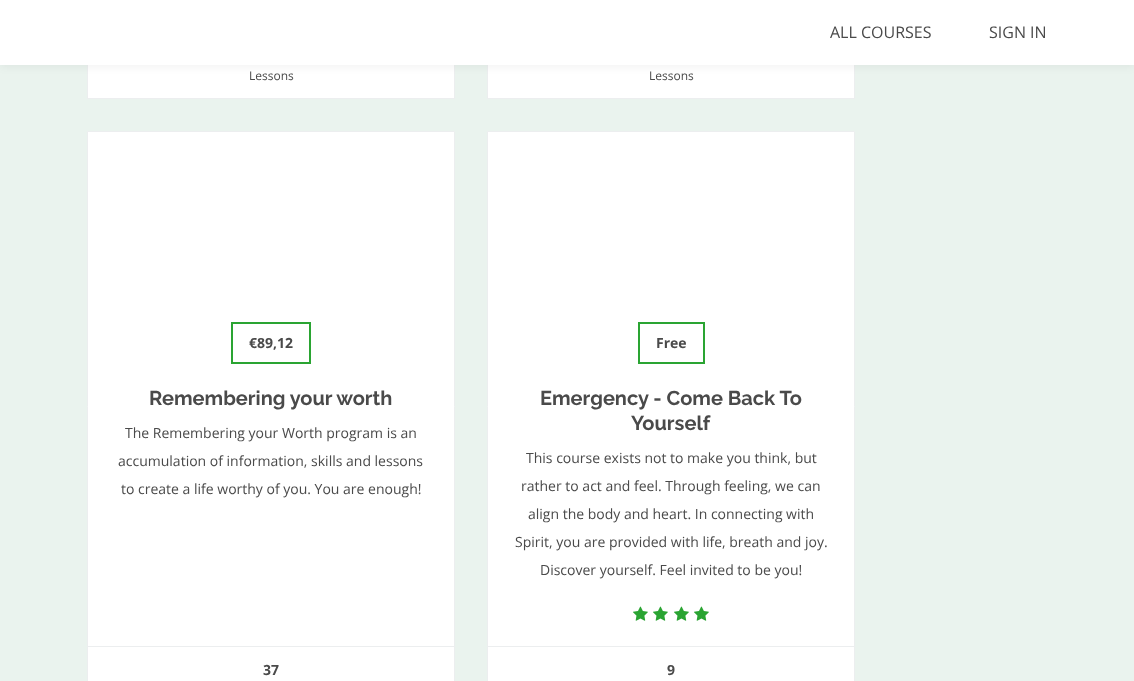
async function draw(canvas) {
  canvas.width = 1134;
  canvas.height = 681;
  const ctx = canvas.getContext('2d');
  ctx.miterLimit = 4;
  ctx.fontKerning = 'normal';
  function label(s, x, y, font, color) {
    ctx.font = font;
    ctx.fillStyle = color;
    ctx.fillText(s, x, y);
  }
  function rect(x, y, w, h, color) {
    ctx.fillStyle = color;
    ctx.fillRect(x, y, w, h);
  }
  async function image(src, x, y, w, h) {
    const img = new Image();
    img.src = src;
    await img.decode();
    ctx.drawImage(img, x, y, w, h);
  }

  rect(0, 0, 1134, 681, '#eaf3ee');
  rect(88, 65, 366, 33, '#fff');
  ctx.strokeStyle = '#eceeef';
  ctx.strokeRect(87.5, -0.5, 367, 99);
  rect(488, 65, 366, 33, '#fff');
  ctx.strokeRect(487.5, -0.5, 367, 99);
  ctx.fillStyle = '#0000000d';
  ctx.filter = 'blur(4px)';
  ctx.beginPath();
  ctx.rect(0, 2, 1134, 65);
  ctx.fill();
  ctx.filter = 'none';
  rect(0, 0, 1134, 65, '#fff');
  label('ALL COURSES', 830, 38, '16px Open Sans', '#4a4a4a');
  label('SIGN IN', 989, 38, '16px Open Sans', '#4a4a4a');
  label('Lessons', 249, 80, '12px Open Sans', '#4a4a4a');
  label('Lessons', 649, 80, '12px Open Sans', '#4a4a4a');
  ctx.fillStyle = '#fff';
  ctx.beginPath();
  ctx.rect(87.5, 131.5, 367, 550);
  ctx.fill();
  ctx.stroke();
  ctx.strokeStyle = '#2aa432';
  ctx.lineWidth = 2;
  ctx.strokeRect(232, 323, 78, 40);
  label('€89,12', 249, 348, 'bold 14px Open Sans', '#4a4a4a');
  label('Remembering your worth', 149, 405, 'bold 20px Raleway', '#4a4a4a');
  label('The Remembering your Worth program is an', 125, 438, '14px Open Sans', '#4a4a4a');
  label('accumulation of information, skills and lessons', 118, 466, '14px Open Sans', '#4a4a4a');
  label('to create a life worthy of you. You are enough!', 121, 494, '14px Open Sans', '#4a4a4a');
  rect(88, 646, 366, 1, '#eceeef');
  label('37', 263, 675, 'bold 14px Open Sans', '#4a4a4a');
  ctx.fillStyle = '#fff';
  ctx.beginPath();
  ctx.rect(487.5, 131.5, 367, 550);
  ctx.fill();
  ctx.strokeStyle = '#eceeef';
  ctx.lineWidth = 1;
  ctx.stroke();
  ctx.strokeStyle = '#2aa432';
  ctx.lineWidth = 2;
  ctx.strokeRect(639, 323, 65, 40);
  label('Free', 656, 348, 'bold 14px Open Sans', '#4a4a4a');
  label('Emergency - Come Back To', 540, 405, 'bold 20px Raleway', '#4a4a4a');
  label('Yourself', 631, 430, 'bold 20px Raleway', '#4a4a4a');
  label('This course exists not to make you think, but', 526, 463, '14px Open Sans', '#4a4a4a');
  label('rather to act and feel. Through feeling, we can', 521, 491, '14px Open Sans', '#4a4a4a');
  label('align the body and heart. In connecting with', 528, 519, '14px Open Sans', '#4a4a4a');
  label('Spirit, you are provided with life, breath and joy.', 515, 547, '14px Open Sans', '#4a4a4a');
  label('Discover yourself. Feel invited to be you!', 540, 575, '14px Open Sans', '#4a4a4a');
  await image('assets/img1.png', 633, 606, 15, 15);
  await image('assets/img1.png', 653, 606, 15, 15);
  await image('assets/img1.png', 674, 606, 15, 15);
  await image('assets/img1.png', 694, 606, 15, 15);
  rect(488, 646, 366, 1, '#eceeef');
  label('9', 667, 675, 'bold 14px Open Sans', '#4a4a4a');
}

draw(document.querySelector('canvas'));
